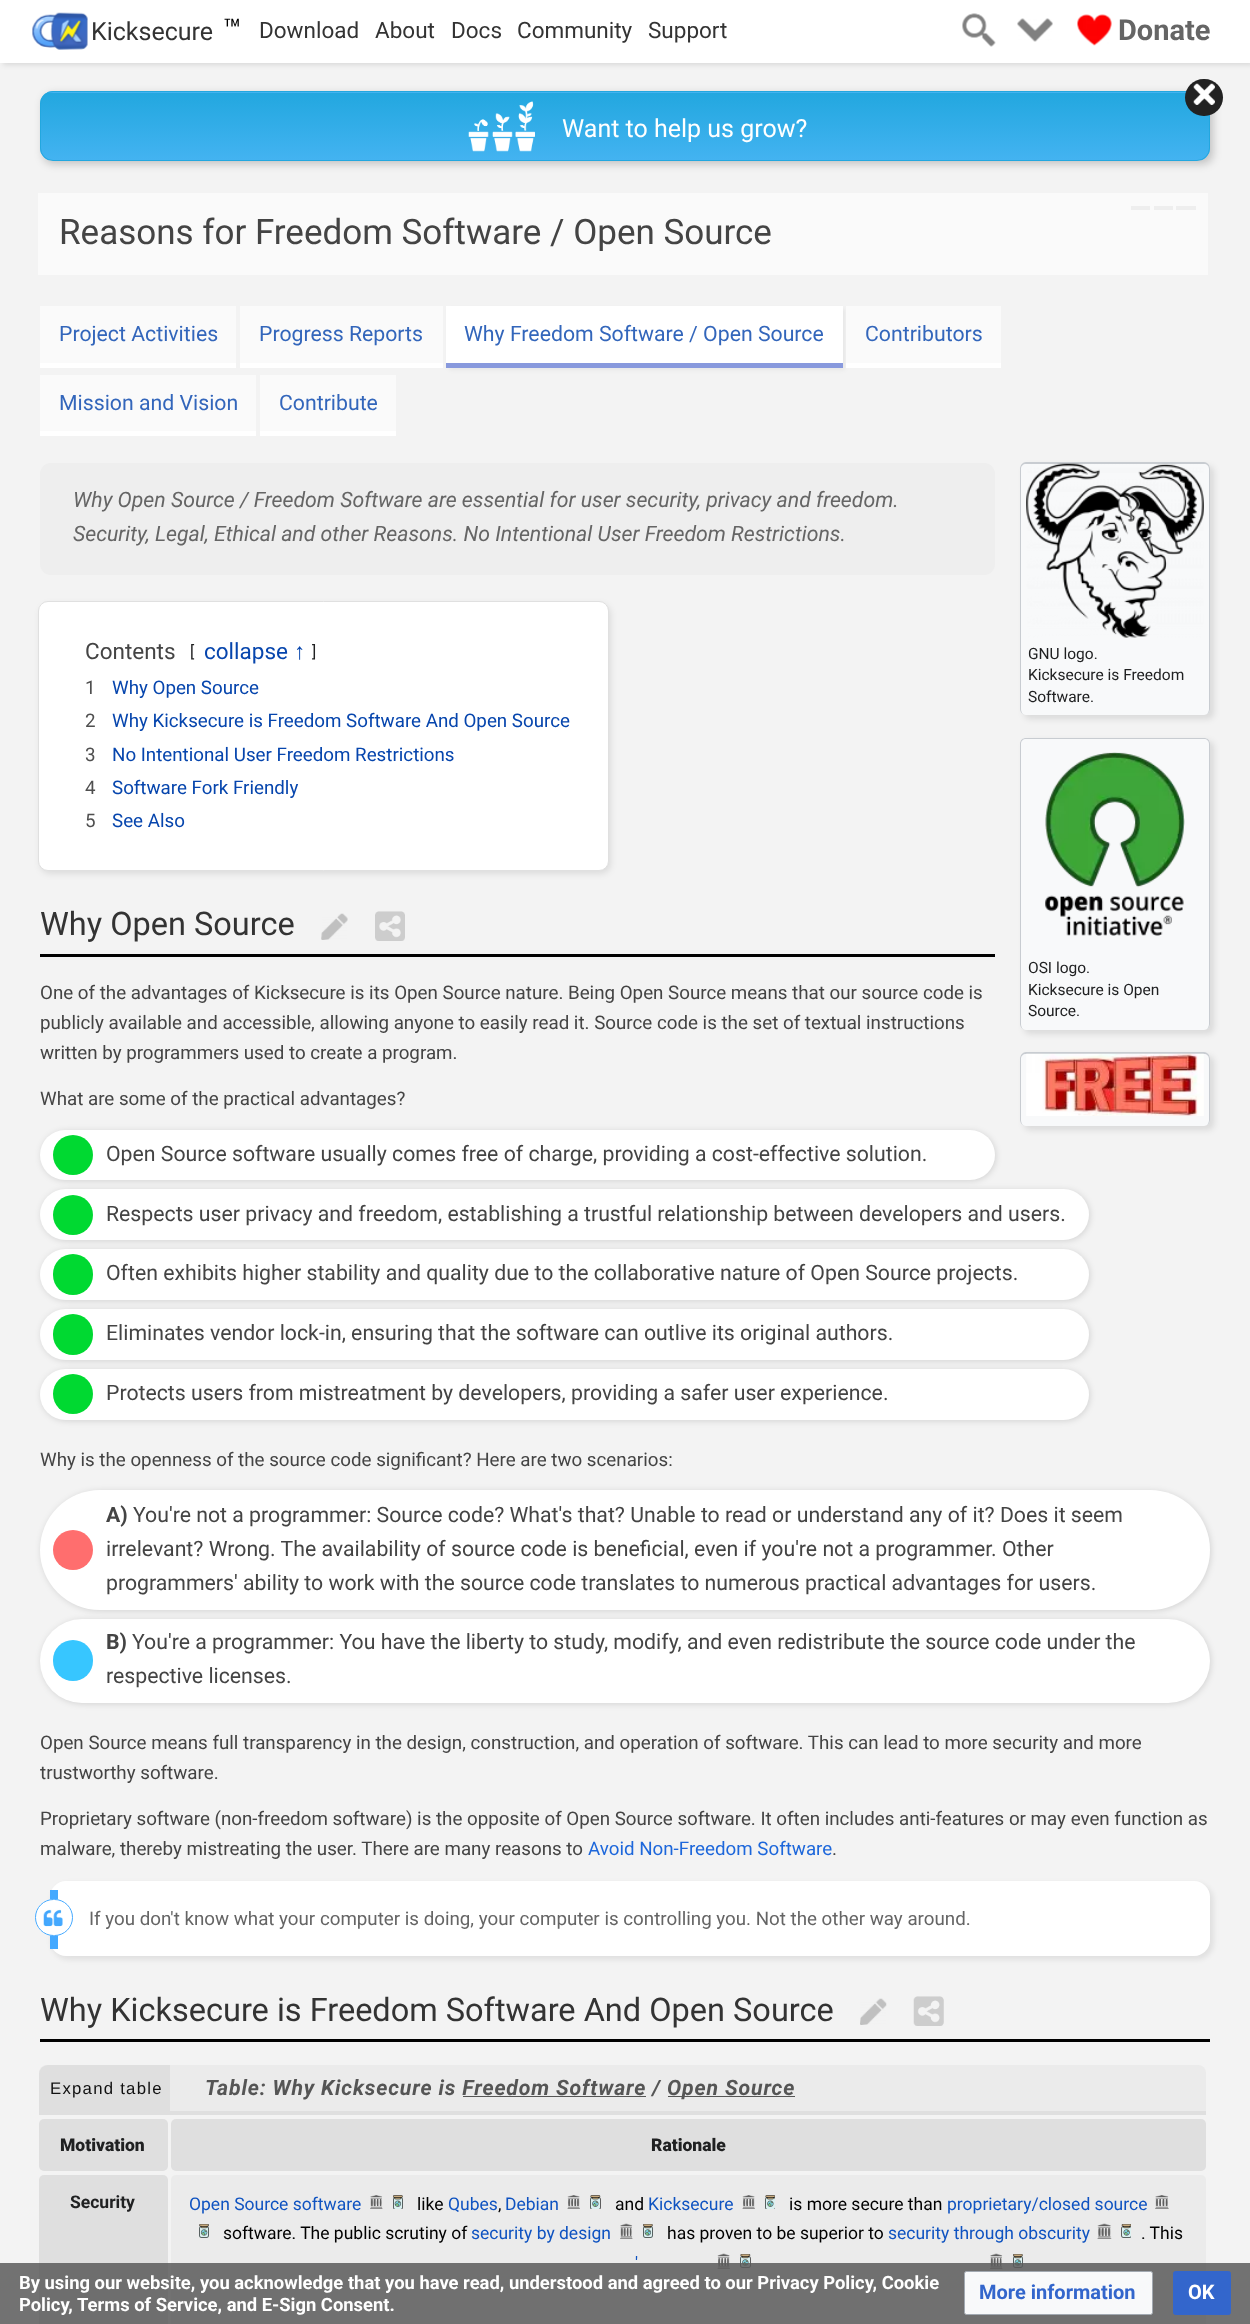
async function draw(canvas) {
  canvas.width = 1250;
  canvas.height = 2324;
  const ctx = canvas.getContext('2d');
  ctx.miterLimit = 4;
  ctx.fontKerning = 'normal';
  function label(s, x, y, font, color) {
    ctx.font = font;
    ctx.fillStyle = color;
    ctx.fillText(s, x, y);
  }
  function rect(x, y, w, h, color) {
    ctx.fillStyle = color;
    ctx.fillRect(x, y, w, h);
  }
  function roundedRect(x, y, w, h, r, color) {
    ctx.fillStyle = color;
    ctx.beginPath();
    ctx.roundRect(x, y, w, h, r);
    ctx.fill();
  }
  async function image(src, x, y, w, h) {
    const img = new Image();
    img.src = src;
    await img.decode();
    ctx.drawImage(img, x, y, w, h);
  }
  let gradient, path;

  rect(0, 0, 1250, 2324, '#f3f3f3');
  ctx.fillStyle = '#0000001a';
  ctx.filter = 'blur(2.5px)';
  ctx.beginPath();
  ctx.rect(3, 3, 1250, 62);
  ctx.fill();
  ctx.filter = 'none';
  rect(0, 0, 1250, 63, '#fff');
  await image('assets/img1.png', 32, 12, 56, 38);
  label('Kicksecure', 91, 40, '25px Roboto', '#333');
  label('™', 223, 40, '30px Roboto', '#000');
  label('Download', 259, 38, '22.5px Roboto', '#333');
  label('About', 375, 38, '22.5px Roboto', '#333');
  label('Docs', 451, 38, '22.5px Roboto', '#333');
  label('Community', 517, 38, '22.5px Roboto', '#333');
  label('Support', 648, 38, '22.5px Roboto', '#333');
  await image('assets/img2.png', 962, 13, 34, 34);
  await image('assets/img3.png', 1017, 18, 36, 24);
  await image('assets/img4.png', 1077, 14, 35, 32);
  label('Donate', 1118, 40, 'bold 29px Roboto', '#656565');
  rect(38, 193, 1170, 82, '#fafafa');
  rect(1131, 206, 19, 4, '#eee');
  rect(1154, 206, 19, 4, '#eee');
  rect(1176, 206, 20, 4, '#eee');
  label('Reasons for Freedom Software / Open Source', 59, 244, '35px Roboto', '#444');
  rect(40, 306, 196, 57, '#fafafa');
  rect(40, 363, 196, 5, '#fff');
  label('Project Activities', 59, 341, '21.25px Roboto', '#36b');
  rect(240, 306, 203, 57, '#fafafa');
  rect(240, 363, 203, 5, '#fff');
  label('Progress Reports', 259, 341, '21.25px Roboto', '#36b');
  ctx.fillStyle = '#0000000d';
  ctx.filter = 'blur(2px)';
  ctx.beginPath();
  ctx.rect(449, 309, 396, 61);
  ctx.fill();
  ctx.filter = 'none';
  rect(446, 306, 397, 57, '#fff');
  rect(446, 363, 397, 5, '#89d');
  label('Why Freedom Software / Open Source', 464, 341, '21.25px Roboto', '#36b');
  rect(846, 306, 155, 57, '#fafafa');
  rect(846, 363, 155, 5, '#fff');
  label('Contributors', 865, 341, '21.25px Roboto', '#36b');
  rect(40, 375, 216, 56, '#fafafa');
  rect(40, 431, 216, 5, '#fff');
  label('Mission and Vision', 59, 410, '21.25px Roboto', '#36b');
  rect(260, 375, 136, 56, '#fafafa');
  rect(260, 431, 136, 5, '#fff');
  label('Contribute', 279, 410, '21.25px Roboto', '#36b');
  roundedRect(40, 463, 955, 112, 11, '#eee');
  label('Why Open Source / Freedom Software are essential for user security, privacy and freedom.', 73, 507, 'italic 21.25px Roboto', '#656565');
  label('Security, Legal, Ethical and other Reasons. No Intentional User Freedom Restrictions.', 73, 541, 'italic 21.25px Roboto', '#656565');
  ctx.fillStyle = '#00000017';
  ctx.filter = 'blur(3px)';
  ctx.beginPath();
  ctx.roundRect(40, 604, 571, 270, 10);
  ctx.fill();
  ctx.filter = 'none';
  ctx.fillStyle = '#fff';
  ctx.beginPath();
  ctx.roundRect(38.5, 601.5, 570, 269, 9.5);
  ctx.fill();
  ctx.strokeStyle = '#e0e0e0';
  ctx.stroke();
  label('Contents', 85, 659, '22.5px Roboto', '#444');
  label('[', 190, 657, '16px Roboto', '#202122');
  label('collapse', 204, 659, '22.5px Roboto', '#0645ad');
  label('↑', 294, 659, '22.5px Liberation Serif', '#0645ad');
  label(']', 312, 657, '16px Roboto', '#202122');
  label('1', 85, 694, '18.75px Roboto', '#4f4f4f');
  label('Why Open Source', 112, 694, '18.75px Roboto', '#0645ad');
  label('2', 85, 727, '18.75px Roboto', '#4f4f4f');
  label('Why Kicksecure is Freedom Software And Open Source', 112, 727, '18.75px Roboto', '#0645ad');
  label('3', 85, 761, '18.75px Roboto', '#4f4f4f');
  label('No Intentional User Freedom Restrictions', 112, 761, '18.75px Roboto', '#0645ad');
  label('4', 85, 794, '18.75px Roboto', '#4f4f4f');
  label('Software Fork Friendly', 112, 794, '18.75px Roboto', '#0645ad');
  label('5', 85, 827, '18.75px Roboto', '#4f4f4f');
  label('See Also', 112, 827, '18.75px Roboto', '#0645ad');
  ctx.fillStyle = '#0000001a';
  ctx.filter = 'blur(3px)';
  ctx.beginPath();
  ctx.roundRect(1024, 466, 190, 253, 6);
  ctx.fill();
  ctx.filter = 'none';
  roundedRect(1020, 463, 190, 252, 6, '#f8f9fa');
  ctx.fillStyle = '#c8ccd1';
  path = new Path2D('M1026 462H1204C1207 462 1210 465 1210 469V709C1210 712 1207 715 1204 715H1026C1023 715 1020 712 1020 709V469C1020 465 1023 462 1026 462ZM1026 464H1204C1207 464 1209 466 1209 469V709C1209 712 1207 715 1204 715H1026C1023 715 1021 712 1021 709V469C1021 466 1023 464 1026 464Z');
  ctx.fill(path, 'evenodd');
  await image('assets/img5.png', 1026, 463, 178, 175);
  label('GNU logo.', 1028, 659, '15.5px Roboto', '#202122');
  label('Kicksecure is Freedom', 1028, 680, '15.5px Roboto', '#202122');
  label('Software.', 1028, 702, '15.5px Roboto', '#202122');
  ctx.fillStyle = '#0000001a';
  ctx.filter = 'blur(3px)';
  ctx.beginPath();
  ctx.roundRect(1024, 741, 190, 293, 6);
  ctx.fill();
  ctx.filter = 'none';
  roundedRect(1020, 738, 190, 292, 6, '#f8f9fa');
  ctx.fillStyle = '#c8ccd1';
  path = new Path2D('M1026 738H1204C1207 738 1210 740 1210 744V1024C1210 1027 1207 1030 1204 1030H1026C1023 1030 1020 1027 1020 1024V744C1020 740 1023 738 1026 738ZM1026 739H1204C1207 739 1209 741 1209 744V1024C1209 1027 1207 1030 1204 1030H1026C1023 1030 1021 1027 1021 1024V744C1021 741 1023 739 1026 739Z');
  ctx.fill(path, 'evenodd');
  await image('assets/img6.png', 1045, 752, 140, 184);
  label('OSI logo.', 1028, 973, '15.5px Roboto', '#202122');
  label('Kicksecure is Open', 1028, 995, '15.5px Roboto', '#202122');
  label('Source.', 1028, 1016, '15.5px Roboto', '#202122');
  ctx.fillStyle = '#0000001a';
  ctx.filter = 'blur(3px)';
  ctx.beginPath();
  ctx.roundRect(1024, 1056, 190, 74, 6);
  ctx.fill();
  ctx.filter = 'none';
  roundedRect(1020, 1053, 190, 73, 6, '#f8f9fa');
  ctx.fillStyle = '#c8ccd1';
  path = new Path2D('M1026 1052H1204C1207 1052 1210 1055 1210 1059V1120C1210 1123 1207 1126 1204 1126H1026C1023 1126 1020 1123 1020 1120V1059C1020 1055 1023 1052 1026 1052ZM1026 1054H1204C1207 1054 1209 1056 1209 1059V1120C1209 1123 1207 1126 1204 1126H1026C1023 1126 1021 1123 1021 1120V1059C1021 1056 1023 1054 1026 1054Z');
  ctx.fill(path, 'evenodd');
  await image('assets/img7.png', 1026, 1053, 178, 63);
  rect(40, 954, 955, 3, '#000');
  label('Why Open Source', 40, 935, '32.5px Roboto', '#333');
  await image('assets/img8.png', 321, 913, 27, 27);
  await image('assets/img9.png', 375, 911, 30, 30);
  label('One of the advantages of Kicksecure is its Open Source nature. Being Open Source means that our source code is', 40, 999, '18.75px Roboto', '#444');
  label('publicly available and accessible, allowing anyone to easily read it. Source code is the set of textual instructions', 40, 1029, '18.75px Roboto', '#444');
  label('written by programmers used to create a program.', 40, 1059, '18.75px Roboto', '#444');
  label('What are some of the practical advantages?', 40, 1105, '18.75px Roboto', '#444');
  ctx.fillStyle = '#00000021';
  ctx.filter = 'blur(3px)';
  ctx.beginPath();
  ctx.roundRect(41, 1131, 955, 50, 25);
  ctx.fill();
  ctx.filter = 'none';
  roundedRect(40, 1130, 955, 50, 25, '#fff');
  ctx.fillStyle = '#00d931';
  ctx.beginPath();
  ctx.arc(73, 1155, 20, 0, 2 * Math.PI);
  ctx.fill();
  label('Open Source software usually comes free of charge, providing a cost-effective solution.', 106, 1161, '21.25px Roboto', '#444');
  ctx.fillStyle = '#00000021';
  ctx.filter = 'blur(3px)';
  ctx.beginPath();
  ctx.roundRect(41, 1190, 1049, 51, 25.5);
  ctx.fill();
  ctx.filter = 'none';
  roundedRect(40, 1189, 1049, 51, 25.5, '#fff');
  ctx.fillStyle = '#00d931';
  ctx.beginPath();
  ctx.arc(73, 1215, 20, 0, 2 * Math.PI);
  ctx.fill();
  label('Respects user privacy and freedom, establishing a trustful relationship between developers and users.', 106, 1221, '21.25px Roboto', '#444');
  ctx.fillStyle = '#00000021';
  ctx.filter = 'blur(3px)';
  ctx.beginPath();
  ctx.roundRect(41, 1250, 1049, 51, 25.5);
  ctx.fill();
  ctx.filter = 'none';
  roundedRect(40, 1249, 1049, 51, 25.5, '#fff');
  roundedRect(53, 1254, 40, 41, 20, '#00d931');
  label('Often exhibits higher stability and quality due to the collaborative nature of Open Source projects.', 106, 1280, '21.25px Roboto', '#444');
  ctx.fillStyle = '#00000021';
  ctx.filter = 'blur(3px)';
  ctx.beginPath();
  ctx.roundRect(41, 1310, 1049, 51, 25.5);
  ctx.fill();
  ctx.filter = 'none';
  roundedRect(40, 1309, 1049, 51, 25.5, '#fff');
  roundedRect(53, 1314, 40, 41, 20, '#00d931');
  label('Eliminates vendor lock-in, ensuring that the software can outlive its original authors.', 106, 1340, '21.25px Roboto', '#444');
  ctx.fillStyle = '#00000021';
  ctx.filter = 'blur(3px)';
  ctx.beginPath();
  ctx.roundRect(41, 1370, 1049, 51, 25.5);
  ctx.fill();
  ctx.filter = 'none';
  roundedRect(40, 1369, 1049, 51, 25.5, '#fff');
  ctx.fillStyle = '#00d931';
  ctx.beginPath();
  ctx.arc(73, 1394, 20, 0, 2 * Math.PI);
  ctx.fill();
  label('Protects users from mistreatment by developers, providing a safer user experience.', 106, 1400, '21.25px Roboto', '#444');
  label('Why is the openness of the source code significant? Here are two scenarios:', 40, 1466, '18.75px Roboto', '#444');
  ctx.fillStyle = '#00000021';
  ctx.filter = 'blur(3px)';
  ctx.beginPath();
  ctx.roundRect(41, 1491, 1170, 120, 60);
  ctx.fill();
  ctx.filter = 'none';
  roundedRect(40, 1490, 1170, 120, 60, '#fff');
  label('A)', 106, 1522, 'bold 21.25px Roboto', '#444');
  label('You\'re not a programmer: Source code? What\'s that? Unable to read or understand any of it? Does it seem', 133, 1522, '21.25px Roboto', '#444');
  ctx.fillStyle = '#ff6e6e';
  ctx.beginPath();
  ctx.arc(73, 1550, 20, 0, 2 * Math.PI);
  ctx.fill();
  label('irrelevant? Wrong. The availability of source code is beneficial, even if you\'re not a programmer. Other', 106, 1556, '21.25px Roboto', '#444');
  label('programmers\' ability to work with the source code translates to numerous practical advantages for users.', 106, 1590, '21.25px Roboto', '#444');
  ctx.fillStyle = '#00000021';
  ctx.filter = 'blur(3px)';
  ctx.beginPath();
  ctx.roundRect(41, 1620, 1170, 84, 42);
  ctx.fill();
  ctx.filter = 'none';
  roundedRect(40, 1619, 1170, 84, 42, '#fff');
  roundedRect(53, 1640, 40, 41, 20, '#37c6ff');
  label('B)', 106, 1649, 'bold 21.25px Roboto', '#444');
  label('You\'re a programmer: You have the liberty to study, modify, and even redistribute the source code under the', 132, 1649, '21.25px Roboto', '#444');
  label('respective licenses.', 106, 1683, '21.25px Roboto', '#444');
  label('Open Source means full transparency in the design, construction, and operation of software. This can lead to more security and more', 40, 1749, '18.75px Roboto', '#444');
  label('trustworthy software.', 40, 1779, '18.75px Roboto', '#444');
  label('Proprietary software (non-freedom software) is the opposite of Open Source software. It often includes anti-features or may even function as', 40, 1825, '18.75px Roboto', '#444');
  label('malware, thereby mistreating the user. There are many reasons to', 40, 1855, '18.75px Roboto', '#444');
  label('Avoid Non-Freedom Software', 588, 1855, '18.75px Roboto', '#1d67db');
  label('.', 832, 1855, '18.75px Roboto', '#444');
  ctx.fillStyle = '#00000012';
  ctx.filter = 'blur(2.5px)';
  ctx.beginPath();
  ctx.roundRect(51, 1883, 1163, 77, 18);
  ctx.fill();
  ctx.filter = 'none';
  roundedRect(50, 1881, 1160, 75, 16, '#fff');
  rect(50, 1890, 8, 59, '#44a9ff');
  roundedRect(35, 1899, 38, 37, 18.5, '#fff');
  await image('assets/img10.png', 43, 1909, 20, 18);
  ctx.beginPath();
  ctx.roundRect(35.5, 1899.5, 37, 36, 18);
  ctx.strokeStyle = '#44a9ff';
  ctx.stroke();
  label('If you don\'t know what your computer is doing, your computer is controlling you. Not the other way around.', 89, 1925, '18.75px Roboto', '#656565');
  rect(40, 2039, 1170, 3, '#000');
  label('Why Kicksecure is Freedom Software And Open Source', 40, 2021, '32.5px Roboto', '#333');
  await image('assets/img11.png', 860, 1998, 27, 27);
  await image('assets/img12.png', 913, 1996, 31, 30);
  ctx.fillStyle = '#ebebeb';
  ctx.beginPath();
  ctx.roundRect(39, 2065, 1167, 46, [8, 8, 0, 0]);
  ctx.fill();
  rect(39, 2111, 1167, 4, '#dfdfdf');
  ctx.beginPath();
  ctx.roundRect(39, 2065, 131, 48, [9, 0, 0, 0]);
  ctx.fill();
  ctx.letterSpacing = '1.25px';
  label('Expand table', 50, 2094, '16.75px Liberation Sans', '#111');
  ctx.letterSpacing = '0.85px';
  label('Table: Why Kicksecure is Freedom Software /', 205, 2095, 'italic bold 21.25px Roboto', '#555');
  rect(668, 2096, 127, 1, '#555');
  label('Open Source', 667, 2095, 'italic bold 21.25px Roboto', '#555');
  rect(463, 2096, 183, 1, '#555');
  roundedRect(39, 2119, 129, 52, 5, '#dfdfdf');
  ctx.letterSpacing = '0px';
  label('Motivation', 60, 2151, '900 17.5px Roboto', '#202122');
  roundedRect(171, 2119, 1035, 52, 5, '#dfdfdf');
  label('Rationale', 651, 2151, '900 17.5px Roboto', '#202122');
  roundedRect(39, 2175, 129, 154, 5, '#dfdfdf');
  label('Security', 70, 2208, 'bold 17.5px Roboto', '#202122');
  roundedRect(171, 2175, 1035, 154, 5, '#ebebeb');
  label('Open Source software', 189, 2210, '17.5px Roboto', '#0f53c1');
  await image('assets/img13.png', 370, 2195, 13, 14);
  await image('assets/img14.png', 393, 2195, 10, 14);
  label('like', 417, 2210, '17.5px Roboto', '#000');
  label('Qubes', 448, 2210, '17.5px Roboto', '#0f53c1');
  label(',', 498, 2210, '17.5px Roboto', '#000');
  label('Debian', 505, 2210, '17.5px Roboto', '#0f53c1');
  await image('assets/img15.png', 567, 2195, 13, 14);
  await image('assets/img16.png', 590, 2195, 11, 14);
  label('and', 615, 2210, '17.5px Roboto', '#000');
  label('Kicksecure', 648, 2210, '17.5px Roboto', '#0f53c1');
  await image('assets/img15.png', 742, 2195, 13, 14);
  await image('assets/img17.png', 765, 2195, 10, 14);
  label('is more secure than', 789, 2210, '17.5px Roboto', '#000');
  label('proprietary/closed source', 947, 2210, '17.5px Roboto', '#0f53c1');
  await image('assets/img18.png', 1155, 2195, 14, 14);
  await image('assets/img19.png', 199, 2224, 10, 14);
  label('software. The public scrutiny of', 223, 2239, '17.5px Roboto', '#000');
  label('security by design', 471, 2239, '17.5px Roboto', '#0f53c1');
  await image('assets/img20.png', 620, 2223, 13, 16);
  await image('assets/img21.png', 643, 2224, 10, 14);
  label('has proven to be superior to', 667, 2239, '17.5px Roboto', '#000');
  label('security through obscurity', 888, 2239, '17.5px Roboto', '#0f53c1');
  await image('assets/img22.png', 1097, 2223, 15, 16);
  await image('assets/img23.png', 1121, 2224, 10, 14);
  label('. This', 1141, 2239, '17.5px Roboto', '#000');
  label('\'', 635, 2269, '17.5px Roboto', '#0f53c1');
  await image('assets/img24.png', 717, 2253, 13, 16);
  await image('assets/img25.png', 740, 2254, 11, 14);
  await image('assets/img20.png', 990, 2253, 13, 16);
  await image('assets/img21.png', 1013, 2254, 10, 14);
  ctx.fillStyle = '#00000033';
  ctx.filter = 'blur(4px)';
  ctx.beginPath();
  ctx.roundRect(43, 94, 1170, 70, 10);
  ctx.fill();
  ctx.filter = 'none';
  ctx.save();
  ctx.beginPath();
  ctx.roundRect(40, 91, 1170, 70, 13);
  ctx.clip();
  gradient = ctx.createLinearGradient(625, 25, 625, 93);
  gradient.addColorStop(0, '#22a7df');
  gradient.addColorStop(1, '#43b3f1');
  ctx.fillStyle = gradient;
  ctx.fillRect(40, 91, 1146, 2);
  gradient = ctx.createLinearGradient(625, 92, 625, 160);
  gradient.addColorStop(0, '#22a7df');
  gradient.addColorStop(1, '#43b3f1');
  ctx.fillStyle = gradient;
  ctx.fillRect(40, 93, 1170, 67);
  ctx.restore();
  ctx.beginPath();
  ctx.roundRect(40.5, 91.5, 1169, 69, 12.5);
  ctx.strokeStyle = '#22a7df';
  ctx.stroke();
  roundedRect(1185, 79, 38, 37, 18.5, '#222');
  await image('assets/img26.png', 1193, 83, 22, 22);
  await image('assets/img27.png', 468, 101, 67, 51);
  label('Want to help us grow?', 562, 137, '25px Roboto', '#fff');
  rect(0, 2263, 1250, 61, '#5a5a5ad9');
  label('By using our website, you acknowledge that you have read, understood and agreed to our Privacy Policy, Cookie', 19, 2289, 'bold 18.4px Roboto', '#fff');
  label('Policy, Terms of Service, and E-Sign Consent.', 19, 2311, 'bold 18.4px Roboto', '#fff');
  ctx.fillStyle = '#f8f9fa';
  ctx.beginPath();
  ctx.roundRect(964.5, 2271.5, 188, 43, 2);
  ctx.fill();
  ctx.strokeStyle = '#a2a9b1';
  ctx.stroke();
  label('More information', 979, 2299, 'bold 20px Roboto', '#36c');
  ctx.beginPath();
  ctx.roundRect(1173.5, 2271.5, 57, 43, 2);
  ctx.fill();
  ctx.strokeStyle = '#36c';
  ctx.stroke();
  label('OK', 1188, 2299, 'bold 20px Roboto', '#fff');
}

draw(document.querySelector('canvas'));
